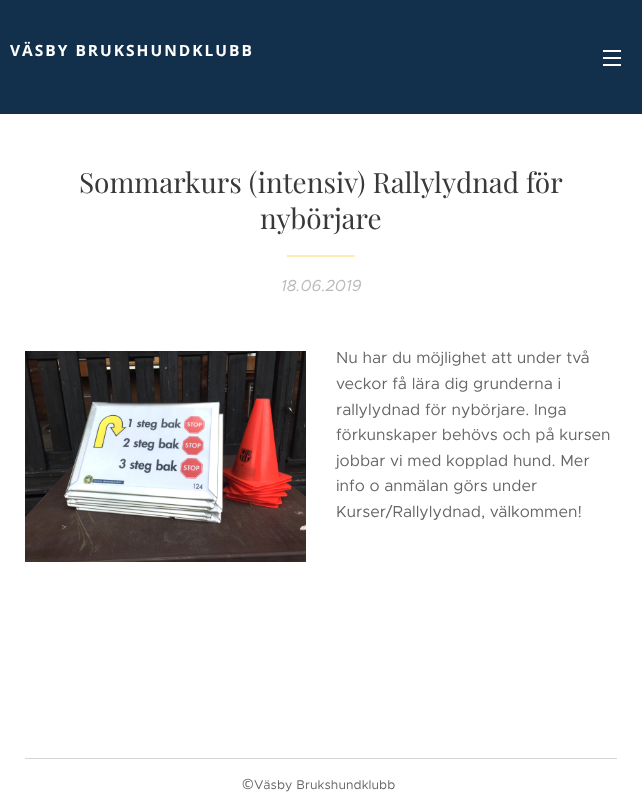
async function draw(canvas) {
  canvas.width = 642;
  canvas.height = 811;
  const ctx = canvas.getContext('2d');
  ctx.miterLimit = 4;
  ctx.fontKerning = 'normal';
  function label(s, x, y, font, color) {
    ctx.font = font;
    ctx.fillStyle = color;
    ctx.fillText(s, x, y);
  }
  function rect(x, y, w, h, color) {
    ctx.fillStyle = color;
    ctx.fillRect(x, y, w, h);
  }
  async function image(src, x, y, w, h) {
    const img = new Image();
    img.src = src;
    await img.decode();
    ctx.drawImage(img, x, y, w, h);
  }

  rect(0, 0, 642, 811, '#fff');
  rect(0, 0, 642, 114, '#12304c');
  ctx.letterSpacing = '2px';
  label('VÄSBY BRUKSHUNDKLUBB', 10, 56, 'bold 15.5px Open Sans', '#fff');
  rect(603, 57, 18, 2, '#fff');
  rect(603, 50, 18, 2, '#fff');
  rect(603, 64, 18, 2, '#fff');
  ctx.letterSpacing = '0px';
  label('Sommarkurs (intensiv) Rallylydnad för', 79, 193, '28px Playfair Display', '#393939');
  label('nybörjare', 260, 229, '28px Playfair Display', '#393939');
  rect(287, 255, 68, 2, '#ffecb3');
  label('18.06.2019', 281, 291, 'italic 16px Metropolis', '#bababa');
  await image('assets/img1.png', 25, 351, 281, 211);
  label('Nu har du möjlighet att under två', 336, 363, '16px Metropolis', '#666');
  label('veckor få lära dig grunderna i', 336, 389, '16px Metropolis', '#666');
  label('rallylydnad för nybörjare. Inga', 336, 415, '16px Metropolis', '#666');
  label('förkunskaper behövs och på kursen', 336, 440, '16px Metropolis', '#666');
  label('jobbar vi med kopplad hund. Mer', 336, 466, '16px Metropolis', '#666');
  label('info o anmälan görs under', 336, 491, '16px Metropolis', '#666');
  label('Kurser/Rallylydnad, välkommen!', 336, 517, '16px Metropolis', '#666');
  rect(25, 758, 592, 1, '#d4d4d4');
  ctx.letterSpacing = '0.1px';
  label('©', 242, 789, '14px Noto Sans', '#666');
  label('Väsby Brukshundklubb', 254, 789, '12.6px Metropolis', '#666');
}

draw(document.querySelector('canvas'));
